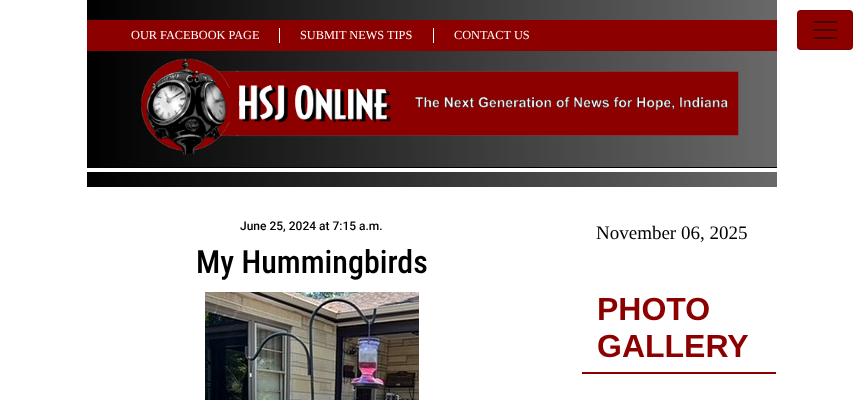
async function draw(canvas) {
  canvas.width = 863;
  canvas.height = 400;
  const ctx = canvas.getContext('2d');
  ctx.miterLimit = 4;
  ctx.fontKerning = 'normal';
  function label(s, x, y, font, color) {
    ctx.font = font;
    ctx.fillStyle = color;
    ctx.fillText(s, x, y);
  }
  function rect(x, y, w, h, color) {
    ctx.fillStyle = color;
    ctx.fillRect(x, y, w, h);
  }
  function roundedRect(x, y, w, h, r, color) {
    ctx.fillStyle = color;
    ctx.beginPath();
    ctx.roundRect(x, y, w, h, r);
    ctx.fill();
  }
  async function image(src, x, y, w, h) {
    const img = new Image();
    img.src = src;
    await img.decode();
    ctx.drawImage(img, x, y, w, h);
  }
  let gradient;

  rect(0, 0, 863, 400, '#fff');
  gradient = ctx.createLinearGradient(87, 12, 777, 12);
  gradient.addColorStop(0, '#000');
  gradient.addColorStop(1, '#696969');
  ctx.fillStyle = gradient;
  ctx.fillRect(87, 0, 690, 20);
  roundedRect(797, 10, 56, 40, 4, '#8c0000');
  ctx.beginPath();
  ctx.roundRect(797.5, 10.5, 55, 39, 3.5);
  ctx.strokeStyle = '#0000001a';
  ctx.stroke();
  await image('assets/img1.png', 813, 21, 24, 18);
  gradient = ctx.createLinearGradient(87, 109, 777, 109);
  gradient.addColorStop(0, '#000');
  gradient.addColorStop(1, '#696969');
  ctx.fillStyle = gradient;
  ctx.fillRect(87, 51, 690, 116);
  rect(87, 167, 690, 1, '#000');
  await image('assets/img2.png', 141, 58, 598, 97);
  rect(87, 20, 690, 31, '#8c0000');
  rect(279, 28, 1, 15, '#fff');
  label('OUR FACEBOOK PAGE', 131, 39, '12.3px Liberation Serif', '#fff');
  rect(433, 28, 1, 15, '#fff');
  label('SUBMIT NEWS TIPS', 300, 39, '12.3px Liberation Serif', '#fff');
  label('CONTACT US', 454, 39, '12.3px Liberation Serif', '#fff');
  gradient = ctx.createLinearGradient(87, 180, 777, 179);
  gradient.addColorStop(0, '#000');
  gradient.addColorStop(1, '#696969');
  ctx.fillStyle = gradient;
  ctx.fillRect(87, 172, 690, 15);
  label('June 25, 2024 at 7:15 a.m.', 240, 230, '500 12px Roboto', '#000');
  label('My Hummingbirds', 196, 273, '500 32px Roboto Condensed', '#000');
  await image('assets/img3.png', 205, 292, 214, 108);
  label('November 06, 2025', 596, 239, '19px Liberation Serif', '#000');
  rect(582, 372, 194, 2, '#8c0000');
  label('PHOTO', 597, 320, 'bold 32px Liberation Sans', '#8c0000');
  label('GALLERY', 597, 357, 'bold 32px Liberation Sans', '#8c0000');
}

draw(document.querySelector('canvas'));
